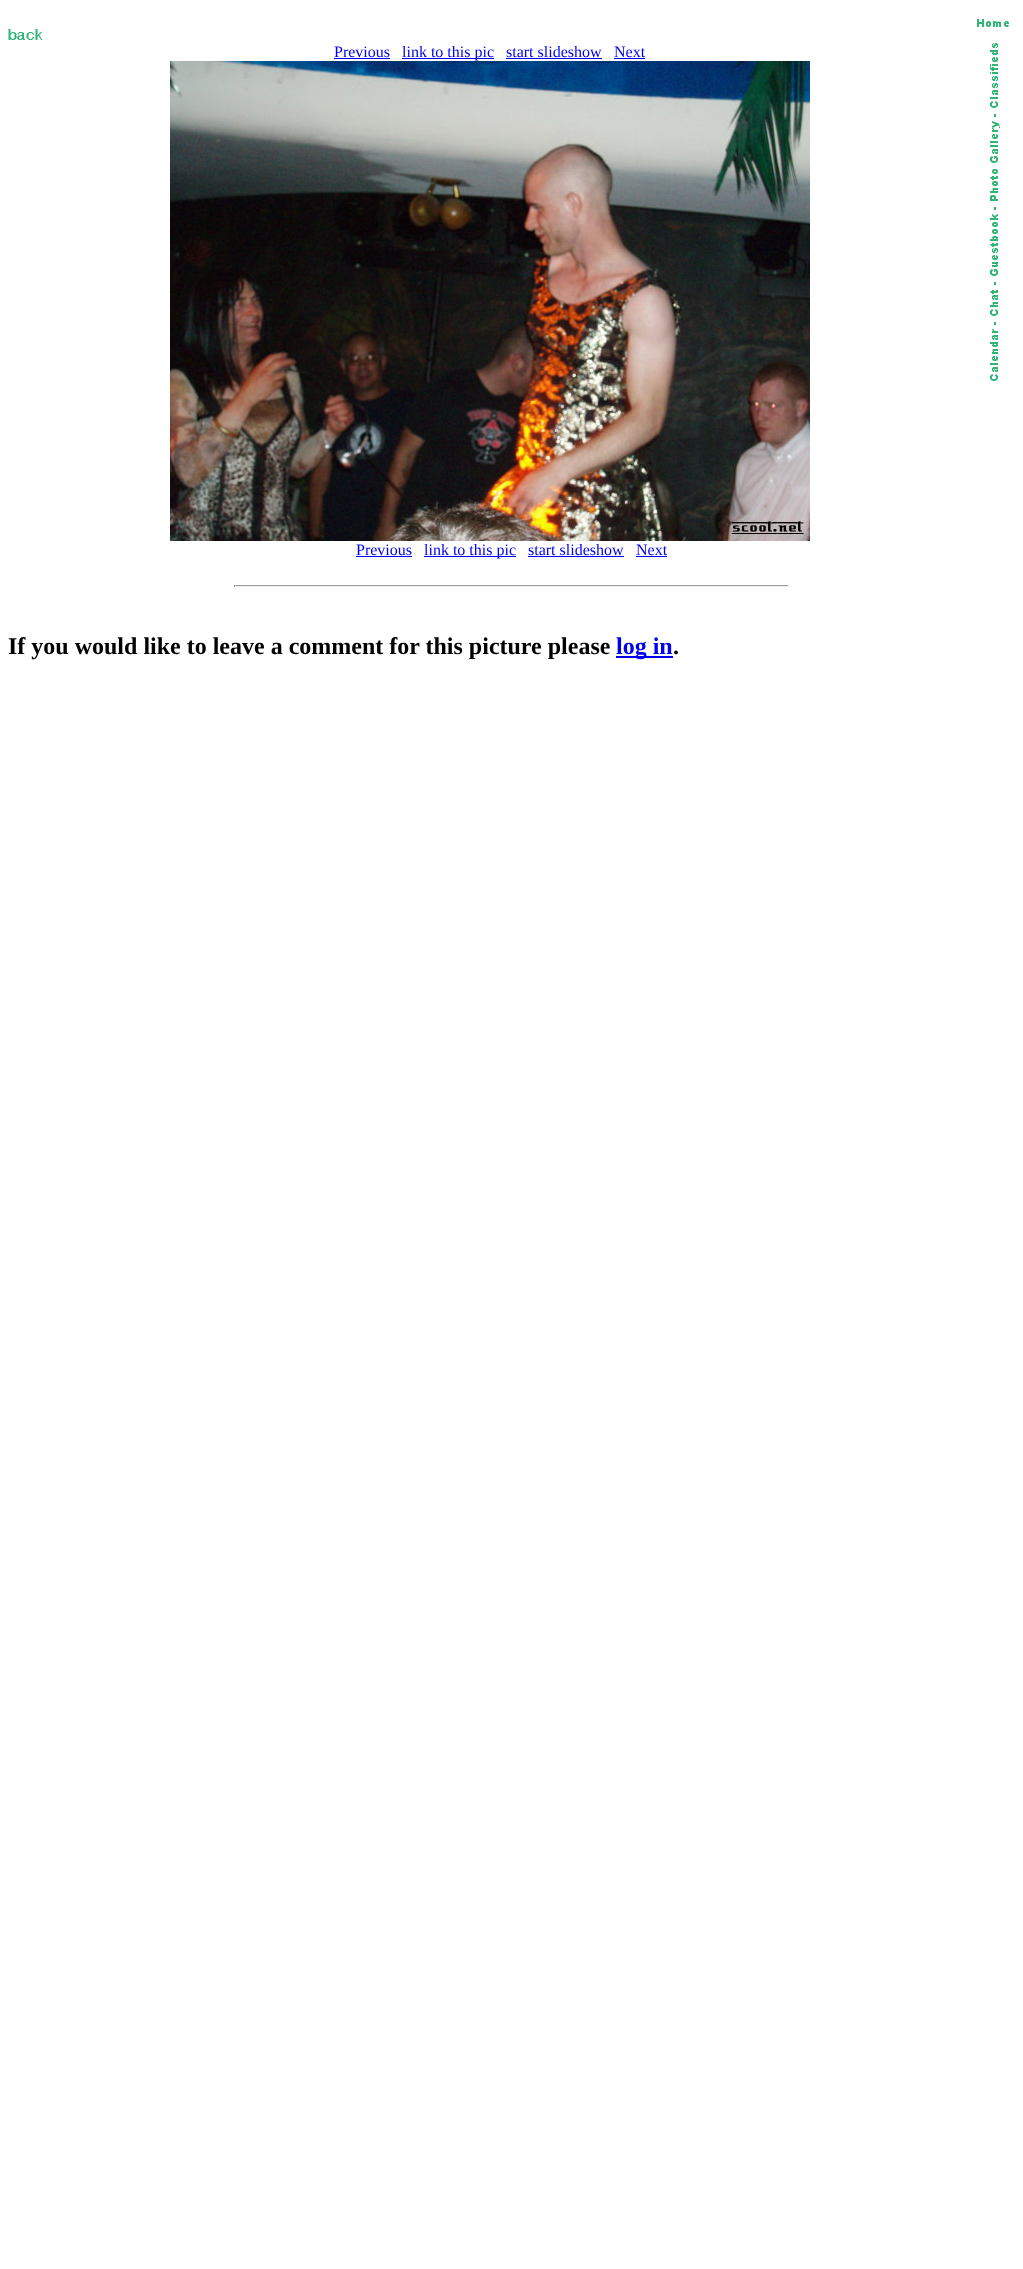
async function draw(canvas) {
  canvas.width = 1023;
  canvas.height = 2269;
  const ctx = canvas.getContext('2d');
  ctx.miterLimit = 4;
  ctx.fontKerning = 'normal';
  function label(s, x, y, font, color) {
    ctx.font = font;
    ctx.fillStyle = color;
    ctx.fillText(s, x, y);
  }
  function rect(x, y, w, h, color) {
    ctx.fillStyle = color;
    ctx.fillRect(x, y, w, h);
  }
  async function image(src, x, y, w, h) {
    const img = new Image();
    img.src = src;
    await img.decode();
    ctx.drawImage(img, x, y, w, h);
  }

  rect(0, 0, 1023, 2269, '#fff');
  await image('assets/img1.png', 8, 29, 34, 11);
  await image('assets/img2.png', 977, 19, 32, 8);
  await image('assets/img3.png', 990, 43, 10, 338);
  label('Previous', 334, 57, '16px Liberation Serif', '#00e');
  rect(334, 58, 56, 1, '#00e');
  rect(402, 58, 92, 1, '#00e');
  label('link to this pic', 402, 57, '16px Liberation Serif', '#00e');
  label('start slideshow', 506, 57, '16px Liberation Serif', '#00e');
  rect(506, 58, 96, 1, '#00e');
  label('Next', 614, 57, '16px Liberation Serif', '#00e');
  rect(614, 58, 31, 1, '#00e');
  await image('assets/img4.png', 170, 61, 640, 480);
  label('Previous', 356, 555, '16px Liberation Serif', '#00e');
  rect(356, 556, 56, 1, '#00e');
  rect(424, 556, 92, 1, '#00e');
  label('link to this pic', 424, 555, '16px Liberation Serif', '#00e');
  label('start slideshow', 528, 555, '16px Liberation Serif', '#00e');
  rect(528, 556, 96, 1, '#00e');
  label('Next', 636, 555, '16px Liberation Serif', '#00e');
  rect(636, 556, 31, 1, '#00e');
  rect(234, 585, 555, 1, '#9f9f9f');
  rect(788, 585, 1, 2, '#eee');
  rect(234, 586, 555, 1, '#eee');
  rect(234, 585, 1, 2, '#9f9f9f');
  label('If you would like to leave a comment for this picture please', 8, 654, 'bold 24px Liberation Serif', '#000');
  rect(616, 656, 57, 2, '#00e');
  label('log in', 616, 654, 'bold 24px Liberation Serif', '#00e');
  label('.', 673, 654, 'bold 24px Liberation Serif', '#000');
}

draw(document.querySelector('canvas'));
